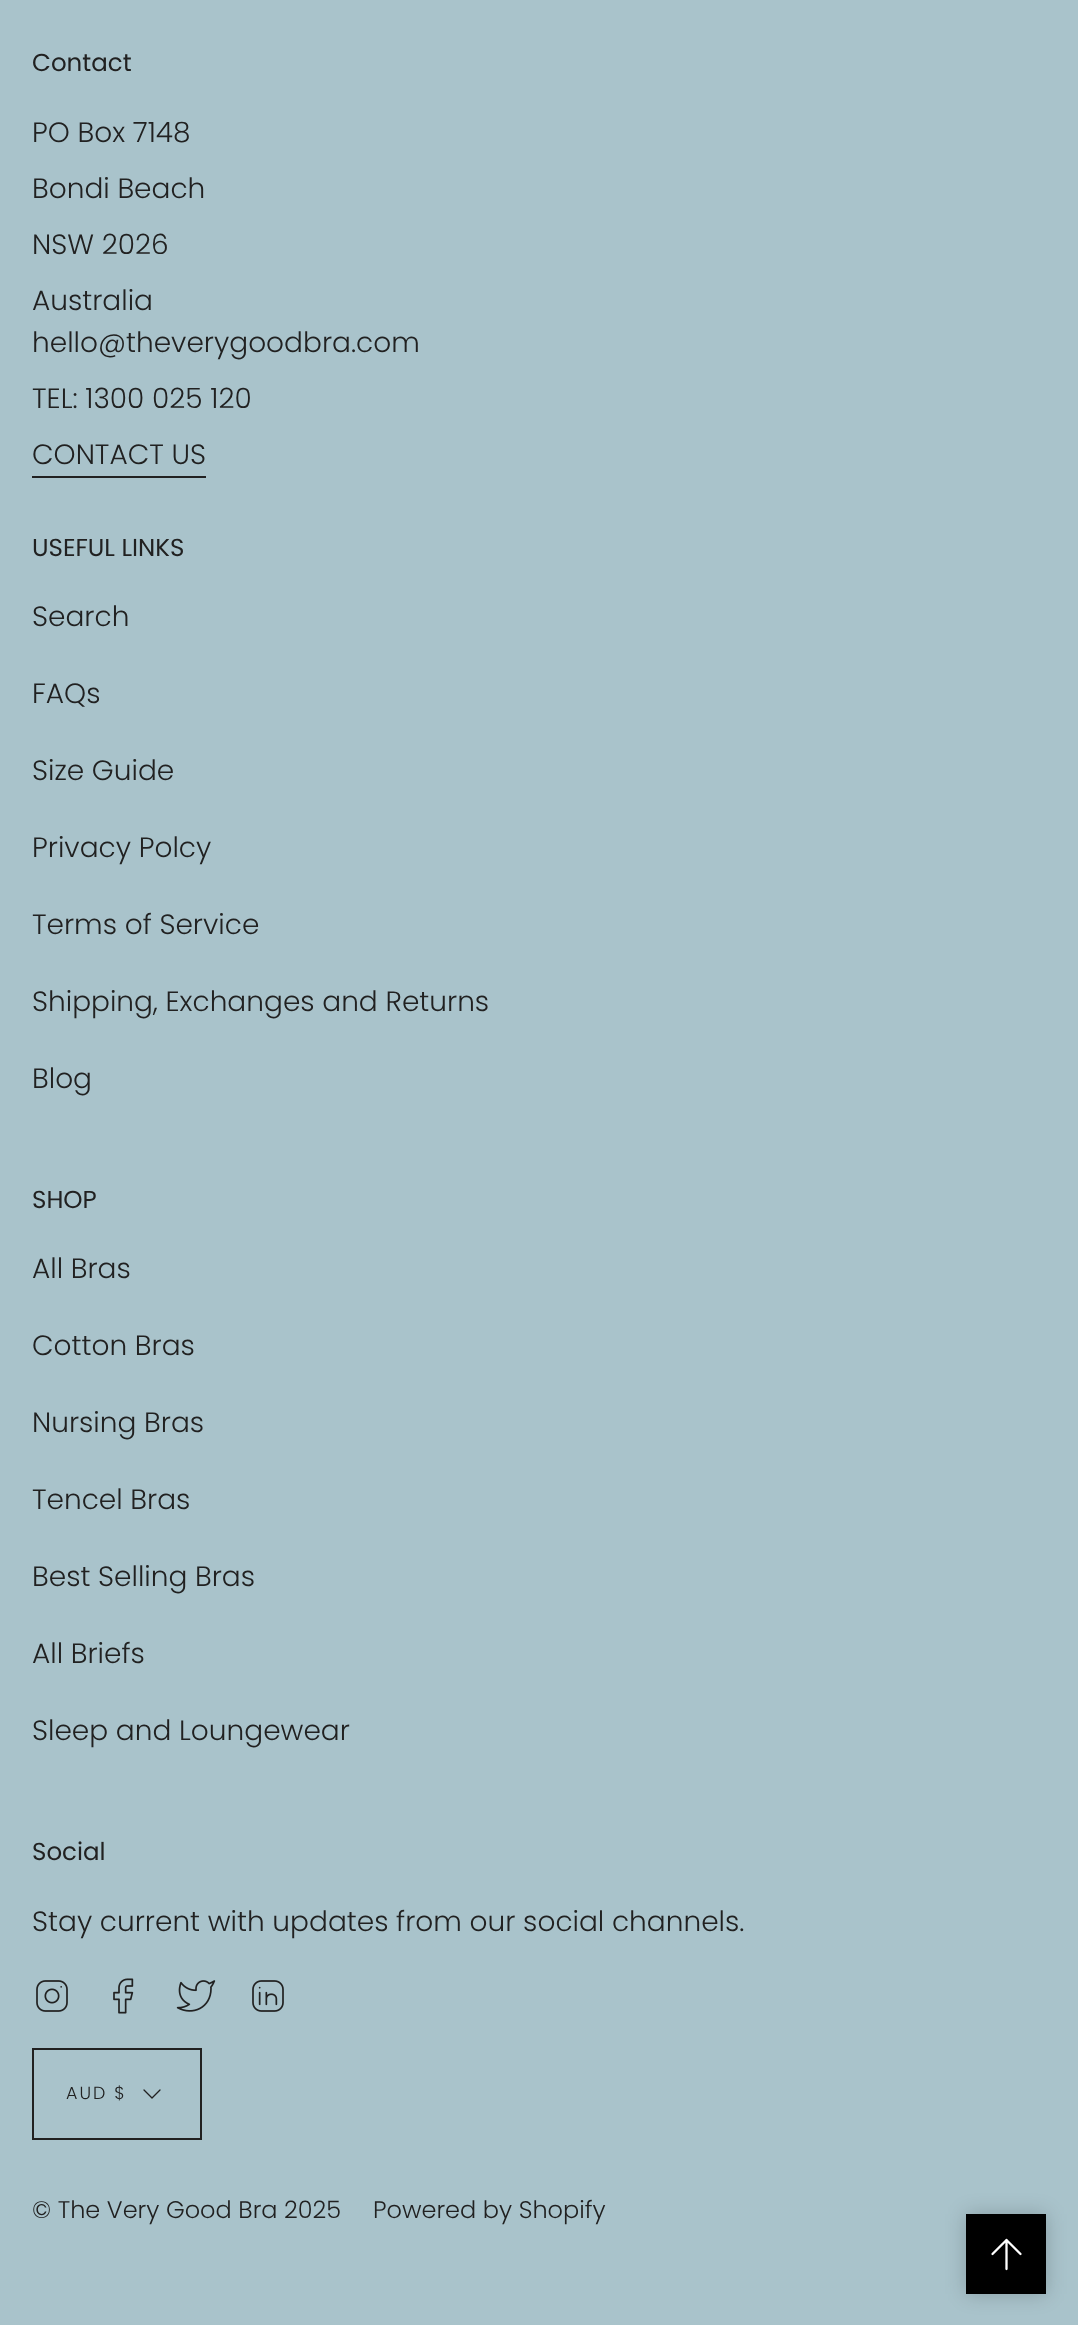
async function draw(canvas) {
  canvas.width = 1078;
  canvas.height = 2325;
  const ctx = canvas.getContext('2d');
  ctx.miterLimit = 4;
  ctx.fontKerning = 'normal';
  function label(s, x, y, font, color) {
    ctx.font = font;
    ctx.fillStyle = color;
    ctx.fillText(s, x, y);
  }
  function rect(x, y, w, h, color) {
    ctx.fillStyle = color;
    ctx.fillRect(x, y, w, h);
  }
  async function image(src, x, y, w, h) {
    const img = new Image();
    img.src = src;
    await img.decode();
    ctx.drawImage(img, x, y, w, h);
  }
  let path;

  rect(0, 0, 1078, 2325, '#a9c3cb');
  label('Contact', 32, 71, '24.5px Poppins', '#212121');
  label('PO Box 7148', 32, 142, '300 28px Poppins', '#212121');
  label('Bondi Beach', 32, 198, '300 28px Poppins', '#212121');
  label('NSW 2026', 32, 254, '300 28px Poppins', '#212121');
  label('Australia', 32, 310, '300 28px Poppins', '#212121');
  label('hello@theverygoodbra.com', 32, 352, '300 28px Poppins', '#212121');
  label('TEL: 1300 025 120', 32, 408, '300 28px Poppins', '#212121');
  label('CONTACT US', 32, 464, '300 28px Poppins', '#212121');
  rect(32, 476, 174, 2, '#212121');
  label('USEFUL LINKS', 32, 556, '24.5px Poppins', '#212121');
  label('Search', 32, 626, '300 28px Poppins', '#212121');
  label('FAQs', 32, 703, '300 28px Poppins', '#212121');
  label('Size Guide', 32, 780, '300 28px Poppins', '#212121');
  label('Privacy Polcy', 32, 857, '300 28px Poppins', '#212121');
  label('Terms of Service', 32, 934, '300 28px Poppins', '#212121');
  label('Shipping, Exchanges and Returns', 32, 1011, '300 28px Poppins', '#212121');
  label('Blog', 32, 1088, '300 28px Poppins', '#212121');
  label('SHOP', 32, 1208, '24.5px Poppins', '#212121');
  label('All Bras', 32, 1278, '300 28px Poppins', '#212121');
  label('Cotton Bras', 32, 1355, '300 28px Poppins', '#212121');
  label('Nursing Bras', 32, 1432, '300 28px Poppins', '#212121');
  label('Tencel Bras', 32, 1509, '300 28px Poppins', '#212121');
  label('Best Selling Bras', 32, 1586, '300 28px Poppins', '#212121');
  label('All Briefs', 32, 1663, '300 28px Poppins', '#212121');
  label('Sleep and Loungewear', 32, 1740, '300 28px Poppins', '#212121');
  label('Social', 32, 1860, '24.5px Poppins', '#212121');
  label('Stay current with updates from our social channels.', 32, 1931, '300 28px Poppins', '#212121');
  await image('assets/img1.png', 36, 1980, 32, 32);
  await image('assets/img2.png', 113, 1978, 21, 36);
  await image('assets/img3.png', 176, 1980, 40, 32);
  await image('assets/img4.png', 252, 1980, 32, 32);
  ctx.strokeStyle = '#212121';
  ctx.lineWidth = 2;
  ctx.strokeRect(33, 2049, 168, 90);
  ctx.letterSpacing = '2px';
  label('AUD $', 66, 2099, '300 17.5px Poppins', '#212121');
  path = new Path2D('M144 2090L152 2098L160 2090');
  ctx.lineWidth = 1.3;
  ctx.lineCap = 'round';
  ctx.lineJoin = 'round';
  ctx.stroke(path);
  ctx.letterSpacing = '0px';
  label('© The Very Good Bra 2025', 32, 2218, '300 24px Poppins', '#212121');
  label('Powered by Shopify', 373, 2218, '300 24px Poppins', '#212121');
  ctx.fillStyle = '#00000033';
  ctx.filter = 'blur(10px)';
  ctx.beginPath();
  ctx.rect(966, 2214, 80, 80);
  ctx.fill();
  ctx.filter = 'none';
  rect(966, 2214, 80, 80, '#000');
  path = new Path2D('M1006.5 2269V2240M1006.5 2240L1020.5 2254M1006.5 2240L992.5 2254');
  ctx.strokeStyle = '#fff';
  ctx.lineWidth = 2.3;
  ctx.stroke(path);
}

draw(document.querySelector('canvas'));
